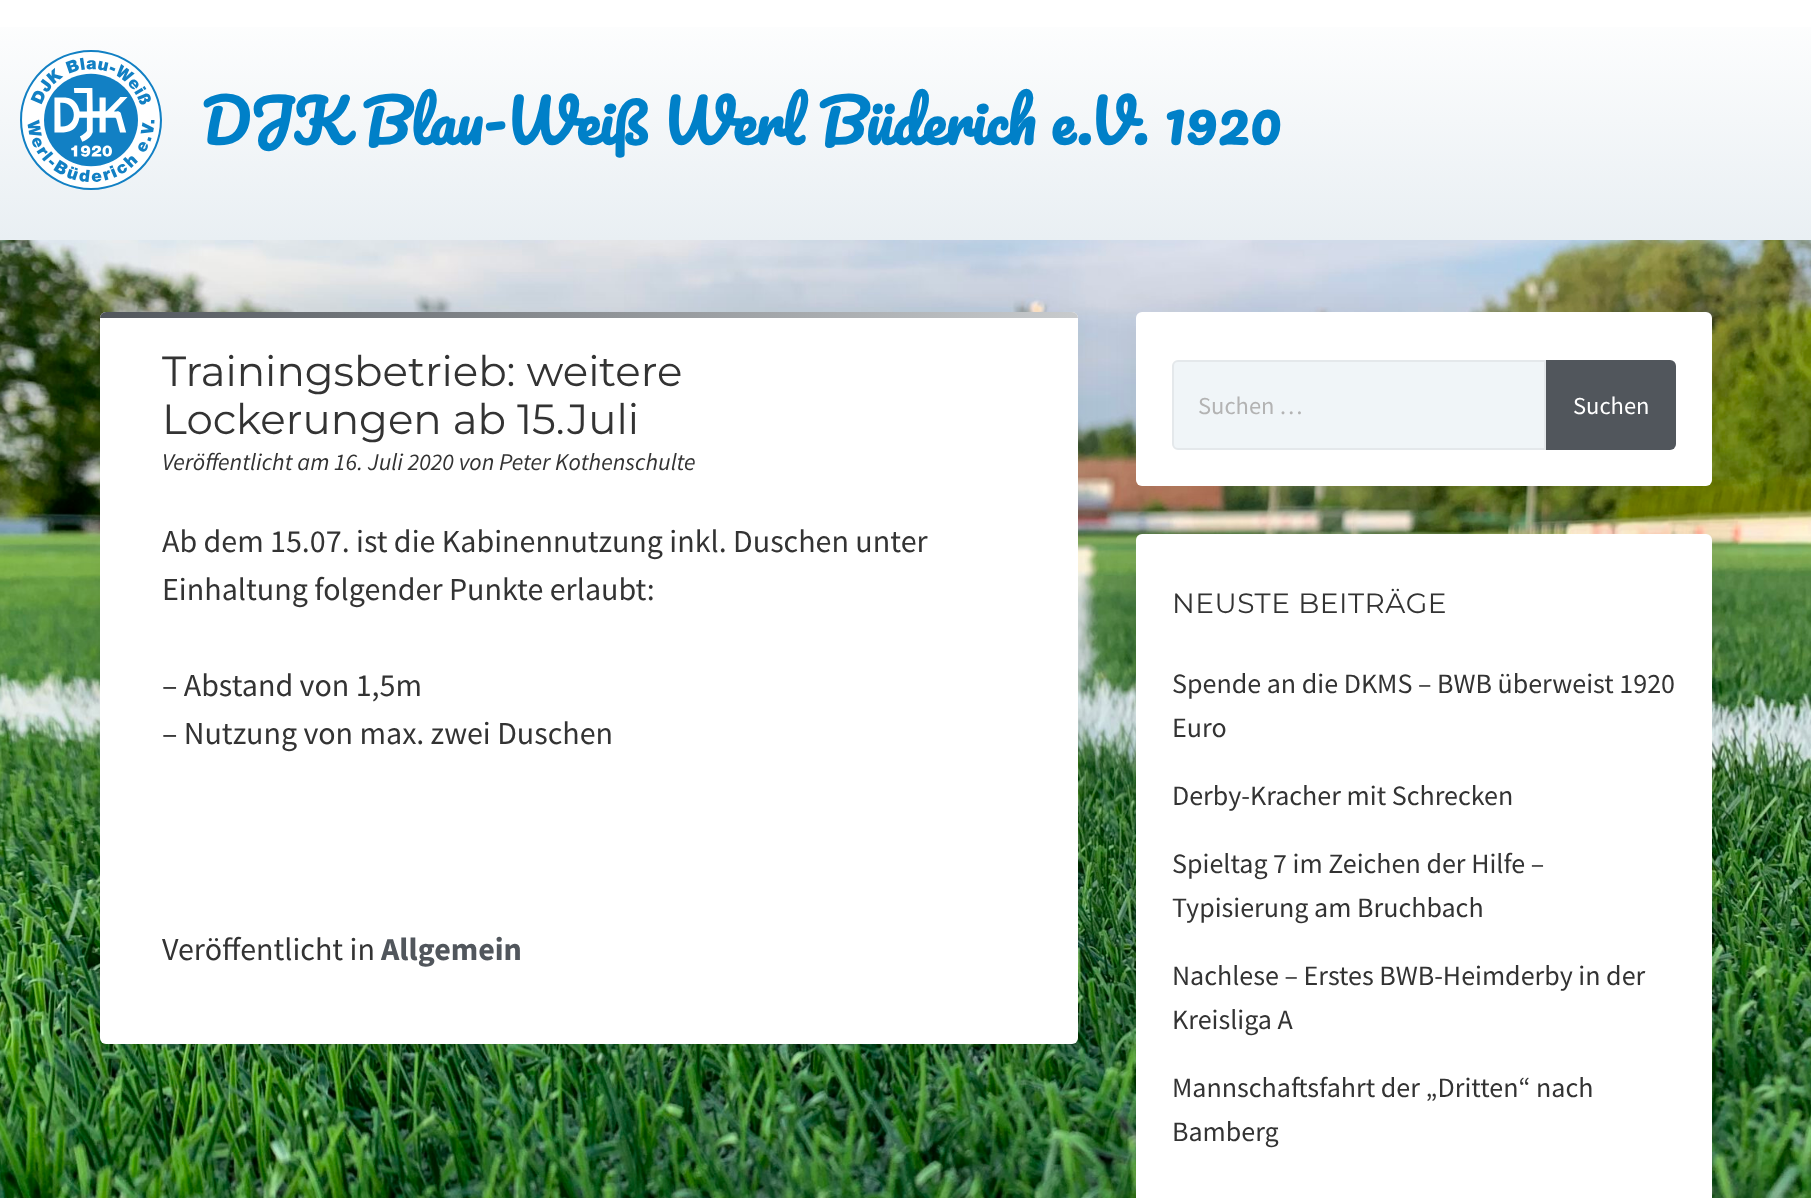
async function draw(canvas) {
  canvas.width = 1811;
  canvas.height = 1198;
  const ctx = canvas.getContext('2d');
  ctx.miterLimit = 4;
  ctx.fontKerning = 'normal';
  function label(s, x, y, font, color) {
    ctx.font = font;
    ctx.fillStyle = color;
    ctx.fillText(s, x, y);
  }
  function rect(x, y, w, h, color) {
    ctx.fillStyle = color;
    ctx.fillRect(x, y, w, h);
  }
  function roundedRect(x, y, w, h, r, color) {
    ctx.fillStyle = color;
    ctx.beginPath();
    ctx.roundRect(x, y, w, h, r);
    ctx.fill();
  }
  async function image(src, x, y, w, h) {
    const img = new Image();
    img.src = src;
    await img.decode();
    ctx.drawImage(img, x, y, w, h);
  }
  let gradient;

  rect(0, 0, 1811, 1198, '#fff');
  await image('assets/img2.png', 0, 240, 1811, 958);
  ctx.fillStyle = '#0000000d';
  ctx.filter = 'blur(24px)';
  ctx.beginPath();
  ctx.roundRect(1136, 312, 576, 174, 6);
  ctx.fill();
  ctx.filter = 'none';
  gradient = ctx.createLinearGradient(906, 0, 906, 240);
  gradient.addColorStop(0, '#fff');
  gradient.addColorStop(1, '#e9eff3');
  ctx.fillStyle = gradient;
  ctx.fillRect(0, 27, 1811, 213);
  await image('assets/img1.png', 20, 50, 142, 140);
  label('DJK Blau-Weiß Werl Büderich e.V. 1920', 201, 145, 'bold 58px Pacifico', '#0080c8');
  roundedRect(1136, 312, 576, 174, 6, '#fff');
  ctx.fillStyle = '#0000000d';
  ctx.filter = 'blur(24px)';
  ctx.beginPath();
  ctx.roundRect(1136, 534, 576, 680, 6);
  ctx.fill();
  ctx.filter = 'none';
  roundedRect(1136, 534, 576, 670, 6, '#fff');
  ctx.fillStyle = '#0000000d';
  ctx.filter = 'blur(24px)';
  ctx.beginPath();
  ctx.roundRect(100, 312, 978, 732, 6);
  ctx.fill();
  ctx.filter = 'none';
  roundedRect(100, 312, 978, 732, 6, '#fff');
  gradient = ctx.createLinearGradient(100, 315, 1078, 315);
  gradient.addColorStop(0, '#51565c');
  gradient.addColorStop(1, '#c8cbcd');
  ctx.fillStyle = gradient;
  ctx.beginPath();
  ctx.roundRect(100, 312, 978, 6, [6, 6, 0, 0]);
  ctx.fill();
  label('Trainingsbetrieb: weitere', 162, 386, '100 42px Montserrat', '#333');
  label('Lockerungen ab 15.Juli', 162, 434, '100 42px Montserrat', '#333');
  label('Veröffentlicht am 16. Juli 2020 von Peter Kothenschulte', 162, 470, 'italic 24px Source Sans Pro', '#333');
  label('Ab dem 15.07. ist die Kabinennutzung inkl. Duschen unter', 162, 552, '32px Source Sans Pro', '#333');
  label('Einhaltung folgender Punkte erlaubt:', 162, 600, '32px Source Sans Pro', '#333');
  label('– Abstand von 1,5m', 162, 696, '32px Source Sans Pro', '#333');
  label('– Nutzung von max. zwei Duschen', 162, 744, '32px Source Sans Pro', '#333');
  label('Veröffentlicht in', 162, 960, '32px Source Sans Pro', '#333');
  label('Allgemein', 381, 960, 'bold 32px Source Sans Pro', '#51565c');
  ctx.fillStyle = '#f0f5f8';
  ctx.beginPath();
  ctx.roundRect(1173, 361, 372, 88, [5, 0, 0, 5]);
  ctx.fill();
  ctx.strokeStyle = '#e4e8eb';
  ctx.lineWidth = 2;
  ctx.stroke();
  label('Suchen …', 1198, 414, '24.5px Source Sans Pro', '#b3b3b3');
  ctx.fillStyle = '#51565c';
  ctx.beginPath();
  ctx.roundRect(1546, 360, 130, 90, [0, 6, 6, 0]);
  ctx.fill();
  label('Suchen', 1573, 414, '24.5px Source Sans Pro', '#fff');
  ctx.letterSpacing = '0.5px';
  label('NEUSTE BEITRÄGE', 1172, 613, '100 28px Montserrat', '#333');
  ctx.letterSpacing = '0px';
  label('Spende an die DKMS – BWB überweist 1920', 1172, 693, '28px Source Sans Pro', '#333');
  label('Euro', 1172, 737, '28px Source Sans Pro', '#333');
  label('Derby-Kracher mit Schrecken', 1172, 805, '28px Source Sans Pro', '#333');
  label('Spieltag 7 im Zeichen der Hilfe –', 1172, 873, '28px Source Sans Pro', '#333');
  label('Typisierung am Bruchbach', 1172, 917, '28px Source Sans Pro', '#333');
  label('Nachlese – Erstes BWB-Heimderby in der', 1172, 985, '28px Source Sans Pro', '#333');
  label('Kreisliga A', 1172, 1029, '28px Source Sans Pro', '#333');
  label('Mannschaftsfahrt der „Dritten“ nach', 1172, 1097, '28px Source Sans Pro', '#333');
  label('Bamberg', 1172, 1141, '28px Source Sans Pro', '#333');
}

draw(document.querySelector('canvas'));
